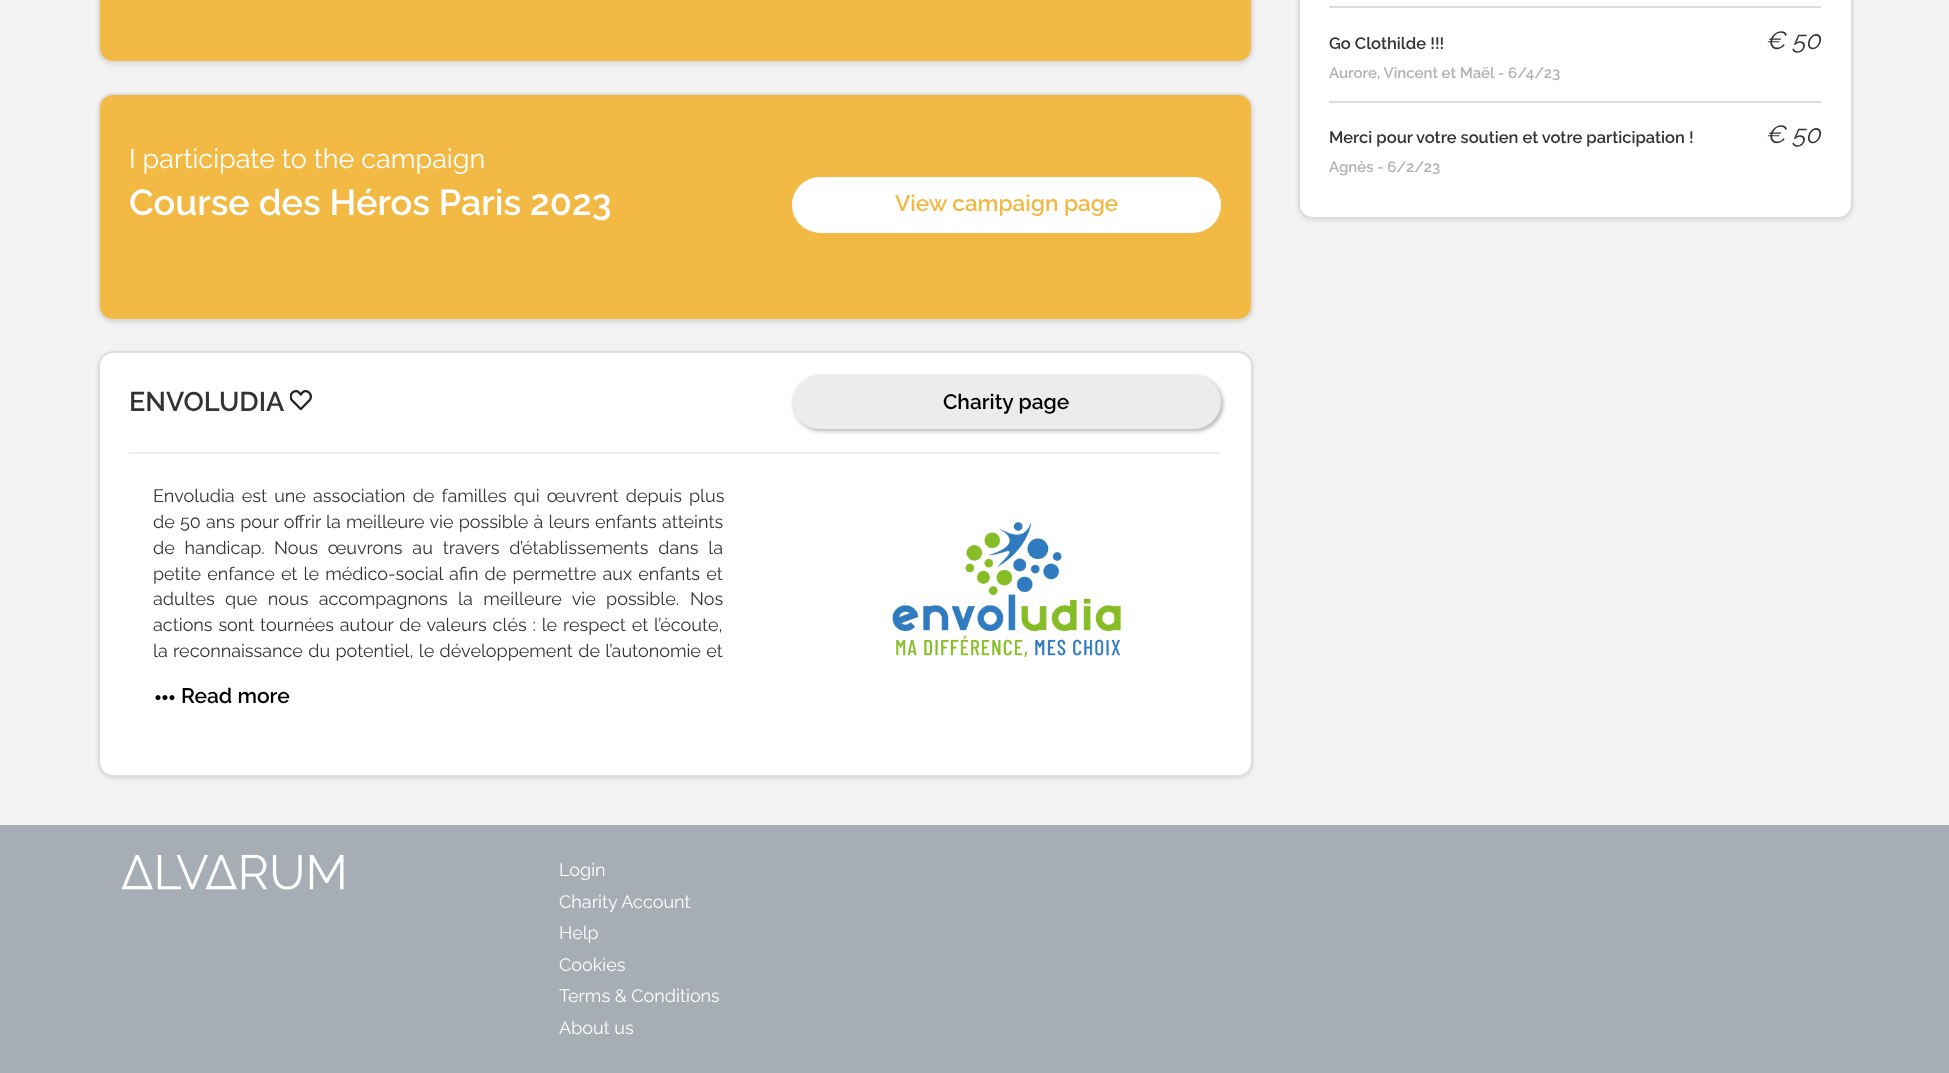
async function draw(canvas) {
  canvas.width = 1949;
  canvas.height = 1073;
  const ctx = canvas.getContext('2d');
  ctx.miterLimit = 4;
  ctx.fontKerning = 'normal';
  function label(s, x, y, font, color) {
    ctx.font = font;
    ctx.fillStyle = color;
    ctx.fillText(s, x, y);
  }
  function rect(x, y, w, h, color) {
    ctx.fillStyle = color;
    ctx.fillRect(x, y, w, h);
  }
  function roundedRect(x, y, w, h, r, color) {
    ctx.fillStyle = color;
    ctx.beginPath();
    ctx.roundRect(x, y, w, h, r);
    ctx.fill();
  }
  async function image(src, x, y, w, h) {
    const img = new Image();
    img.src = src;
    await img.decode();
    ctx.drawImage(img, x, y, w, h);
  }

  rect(0, 0, 1949, 1073, '#f3f3f3');
  ctx.fillStyle = '#ddd';
  ctx.filter = 'blur(2px)';
  ctx.beginPath();
  ctx.roundRect(1298, -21, 555, 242, 15);
  ctx.fill();
  ctx.filter = 'none';
  ctx.fillStyle = '#fff';
  ctx.beginPath();
  ctx.roundRect(1299, -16, 553, 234, 14);
  ctx.fill();
  ctx.strokeStyle = '#ddd';
  ctx.lineWidth = 2;
  ctx.stroke();
  rect(1329, 6, 492, 2, '#ddd');
  label('Go Clothilde !!!', 1329, 49, '600 16.5px Raleway', '#333');
  label('Aurore, Vincent et Maël', 1329, 78, '600 15px Raleway', '#b3b3b3');
  label('- 6/4/23', 1498, 78, '600 15px Raleway', '#b3b3b3');
  label('€ 50', 1765, 49, 'italic 25px Raleway', '#333');
  rect(1329, 101, 492, 2, '#ddd');
  label('Merci pour votre soutien et votre participation !', 1329, 143, '600 16.5px Raleway', '#333');
  label('Agnès - 6/2/23', 1329, 172, '600 15px Raleway', '#b3b3b3');
  label('€ 50', 1765, 143, 'italic 25px Raleway', '#333');
  ctx.fillStyle = '#ddd';
  ctx.filter = 'blur(2px)';
  ctx.beginPath();
  ctx.roundRect(98, -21, 1155, 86, 15);
  ctx.fill();
  ctx.filter = 'none';
  ctx.fillStyle = '#f2b944';
  ctx.beginPath();
  ctx.roundRect(99, -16, 1153, 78, 14);
  ctx.fill();
  ctx.stroke();
  ctx.fillStyle = '#ddd';
  ctx.filter = 'blur(2px)';
  ctx.beginPath();
  ctx.roundRect(98, 95, 1155, 228, 15);
  ctx.fill();
  ctx.filter = 'none';
  ctx.fillStyle = '#f2b944';
  ctx.beginPath();
  ctx.roundRect(99, 94, 1153, 226, 14);
  ctx.fill();
  ctx.stroke();
  label('I participate to the campaign', 129, 168, '27px Raleway', '#fff');
  label('Course des Héros Paris 2023', 129, 215, '600 36px Raleway', '#fff');
  roundedRect(792, 177, 429, 56, 28, '#fff');
  label('View campaign page', 895, 211, '600 22.5px Raleway', '#f2b944');
  ctx.fillStyle = '#ddd';
  ctx.filter = 'blur(2px)';
  ctx.beginPath();
  ctx.roundRect(98, 353, 1155, 426, 15);
  ctx.fill();
  ctx.filter = 'none';
  ctx.fillStyle = '#fff';
  ctx.beginPath();
  ctx.roundRect(99, 352, 1153, 424, 14);
  ctx.fill();
  ctx.stroke();
  label('ENVOLUDIA', 129, 411, '600 27px Raleway', '#333');
  await image('assets/img1.png', 290, 390, 22, 21);
  ctx.fillStyle = '#0000004d';
  ctx.filter = 'blur(2px)';
  ctx.beginPath();
  ctx.roundRect(794, 377, 429, 54, 27);
  ctx.fill();
  ctx.filter = 'none';
  roundedRect(792, 375, 429, 54, 27, '#ebeded');
  label('Charity page', 943, 409, '600 21px Raleway', '#000');
  rect(129, 452, 1092, 2, '#eee');
  ctx.wordSpacing = '2.5px';
  label('Envoludia est une association de familles qui œuvrent depuis plus', 153, 502, '18px Raleway', '#333');
  ctx.wordSpacing = '0.6px';
  label('de 50 ans pour offrir la meilleure vie possible à leurs enfants atteints', 153, 528, '18px Raleway', '#333');
  ctx.wordSpacing = '5.25px';
  label('de handicap.', 153, 554, '18px Raleway', '#333');
  label('Nous œuvrons au travers d’établissements dans la', 274, 554, '18px Raleway', '#333');
  ctx.wordSpacing = '1.6px';
  label('petite enfance et le médico-social afin de permettre aux enfants et', 153, 580, '18px Raleway', '#333');
  ctx.wordSpacing = '5.75px';
  label('adultes que nous accompagnons la meilleure vie possible.', 153, 605, '18px Raleway', '#333');
  ctx.wordSpacing = '0px';
  label('Nos', 690, 605, '18px Raleway', '#333');
  ctx.wordSpacing = '1.25px';
  label('actions sont tournées autour de valeurs clés : le respect et l’écoute,', 153, 631, '18px Raleway', '#333');
  ctx.wordSpacing = '0.75px';
  label('la reconnaissance du potentiel, le développement de l’autonomie et', 153, 657, '18px Raleway', '#333');
  await image('assets/img2.png', 155, 695, 20, 6);
  ctx.wordSpacing = '0px';
  label('Read more', 181, 703, '600 21px Raleway', '#000');
  await image('assets/img3.png', 892, 522, 229, 136);
  rect(0, 825, 1949, 248, '#a6adb4');
  await image('assets/img4.png', 121, 855, 223, 35);
  label('Login', 559, 876, '18px Raleway', '#fff');
  label('Charity Account', 559, 908, '18px Raleway', '#fff');
  label('Help', 559, 939, '18px Raleway', '#fff');
  label('Cookies', 559, 971, '18px Raleway', '#fff');
  label('Terms & Conditions', 559, 1002, '18px Raleway', '#fff');
  label('About us', 559, 1034, '18px Raleway', '#fff');
}

draw(document.querySelector('canvas'));
